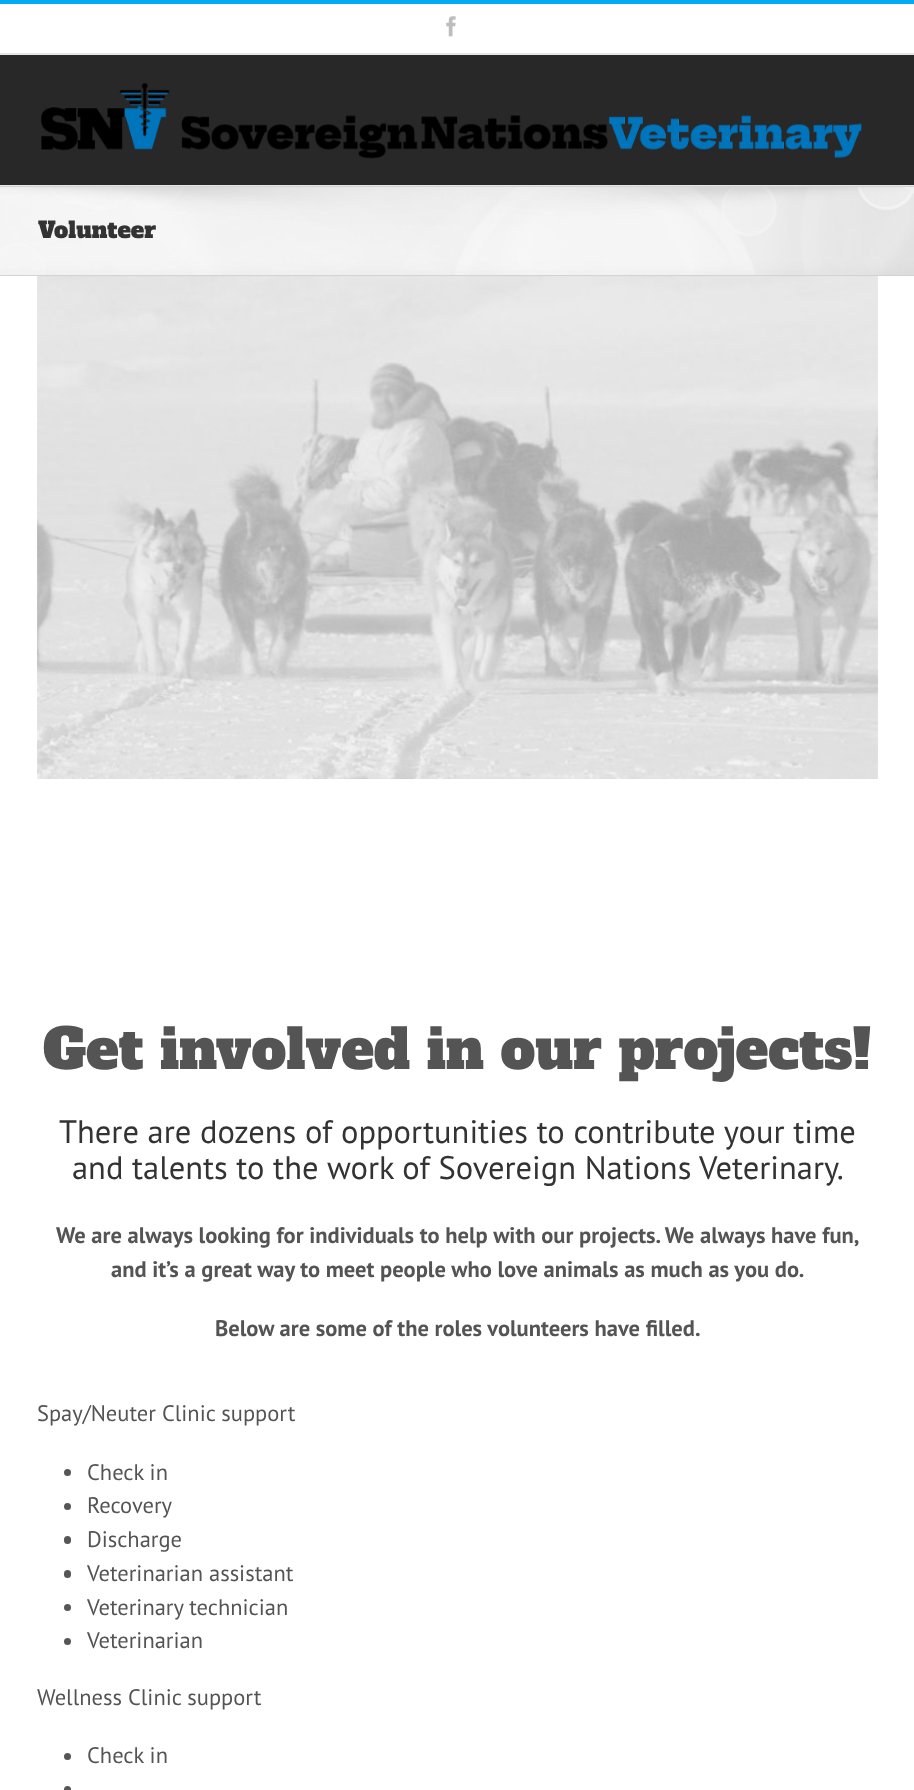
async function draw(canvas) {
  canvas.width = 914;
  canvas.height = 1790;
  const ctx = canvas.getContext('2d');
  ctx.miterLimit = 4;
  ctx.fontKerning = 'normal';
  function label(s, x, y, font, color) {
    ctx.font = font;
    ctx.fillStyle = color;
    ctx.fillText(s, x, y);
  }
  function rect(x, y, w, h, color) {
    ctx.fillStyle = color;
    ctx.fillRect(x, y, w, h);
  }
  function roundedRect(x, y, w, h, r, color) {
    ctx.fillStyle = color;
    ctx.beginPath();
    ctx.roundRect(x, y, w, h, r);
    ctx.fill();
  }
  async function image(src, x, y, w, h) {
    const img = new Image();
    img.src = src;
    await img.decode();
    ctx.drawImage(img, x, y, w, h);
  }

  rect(0, 0, 914, 1790, '#fff');
  rect(0, 0, 914, 4, '#03a9f4');
  rect(0, 53, 914, 2, '#e5e5e5');
  await image('assets/img1.png', 446, 16, 10, 21);
  rect(0, 55, 914, 130, '#282828');
  rect(0, 185, 914, 1, '#e5e5e5');
  await image('assets/img2.png', 41, 83, 821, 76);
  rect(0, 187, 914, 88, '#f6f6f6');
  await image('assets/img3.png', 0, 187, 914, 88);
  rect(0, 186, 914, 1, '#d2d3d4');
  rect(0, 275, 914, 1, '#d2d3d4');
  label('Volunteer', 38, 238, '22.5px Alfa Slab One', '#333');
  await image('assets/img4.png', 37, 276, 841, 503);
  label('Get involved in our projects!', 43, 1069, '55px Alfa Slab One', '#545454');
  label('There are dozens of opportunities to contribute your time', 59, 1143, '32.5px PT Sans', '#333');
  label('and talents to the work of Sovereign Nations Veterinary.', 72, 1179, '32.5px PT Sans', '#333');
  label('We are always looking for individuals to help with our projects. We always have fun,', 56, 1243, 'bold 22.5px PT Sans', '#545454');
  label('and it’s a great way to meet people who love animals as much as you do.', 111, 1277, 'bold 22.5px PT Sans', '#545454');
  label('Below are some of the roles volunteers have filled.', 215, 1336, 'bold 22.5px PT Sans', '#545454');
  label('Spay/Neuter Clinic support', 37, 1421, '22.5px PT Sans', '#545454');
  ctx.fillStyle = '#565656';
  ctx.beginPath();
  ctx.arc(67.5, 1472.5, 3.5, 0, 2 * Math.PI);
  ctx.fill();
  label('Check in', 87, 1480, '22.5px PT Sans', '#545454');
  ctx.fillStyle = '#565656';
  ctx.beginPath();
  ctx.arc(67.5, 1506.5, 3.5, 0, 2 * Math.PI);
  ctx.fill();
  label('Recovery', 87, 1513, '22.5px PT Sans', '#545454');
  roundedRect(64, 1536, 7, 8, 3.5, '#565656');
  label('Discharge', 87, 1547, '22.5px PT Sans', '#545454');
  roundedRect(64, 1570, 7, 8, 3.5, '#565656');
  label('Veterinarian assistant', 87, 1581, '22.5px PT Sans', '#545454');
  ctx.fillStyle = '#565656';
  ctx.beginPath();
  ctx.arc(67.5, 1607.5, 3.5, 0, 2 * Math.PI);
  ctx.fill();
  label('Veterinary technician', 87, 1615, '22.5px PT Sans', '#545454');
  ctx.fillStyle = '#565656';
  ctx.beginPath();
  ctx.arc(67.5, 1641.5, 3.5, 0, 2 * Math.PI);
  ctx.fill();
  label('Veterinarian', 87, 1648, '22.5px PT Sans', '#545454');
  label('Wellness Clinic support', 37, 1705, '22.5px PT Sans', '#545454');
  ctx.fillStyle = '#565656';
  ctx.beginPath();
  ctx.arc(67.5, 1756.5, 3.5, 0, 2 * Math.PI);
  ctx.fill();
  label('Check in', 87, 1763, '22.5px PT Sans', '#545454');
  roundedRect(64, 1786, 7, 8, 3.5, '#565656');
}

draw(document.querySelector('canvas'));
